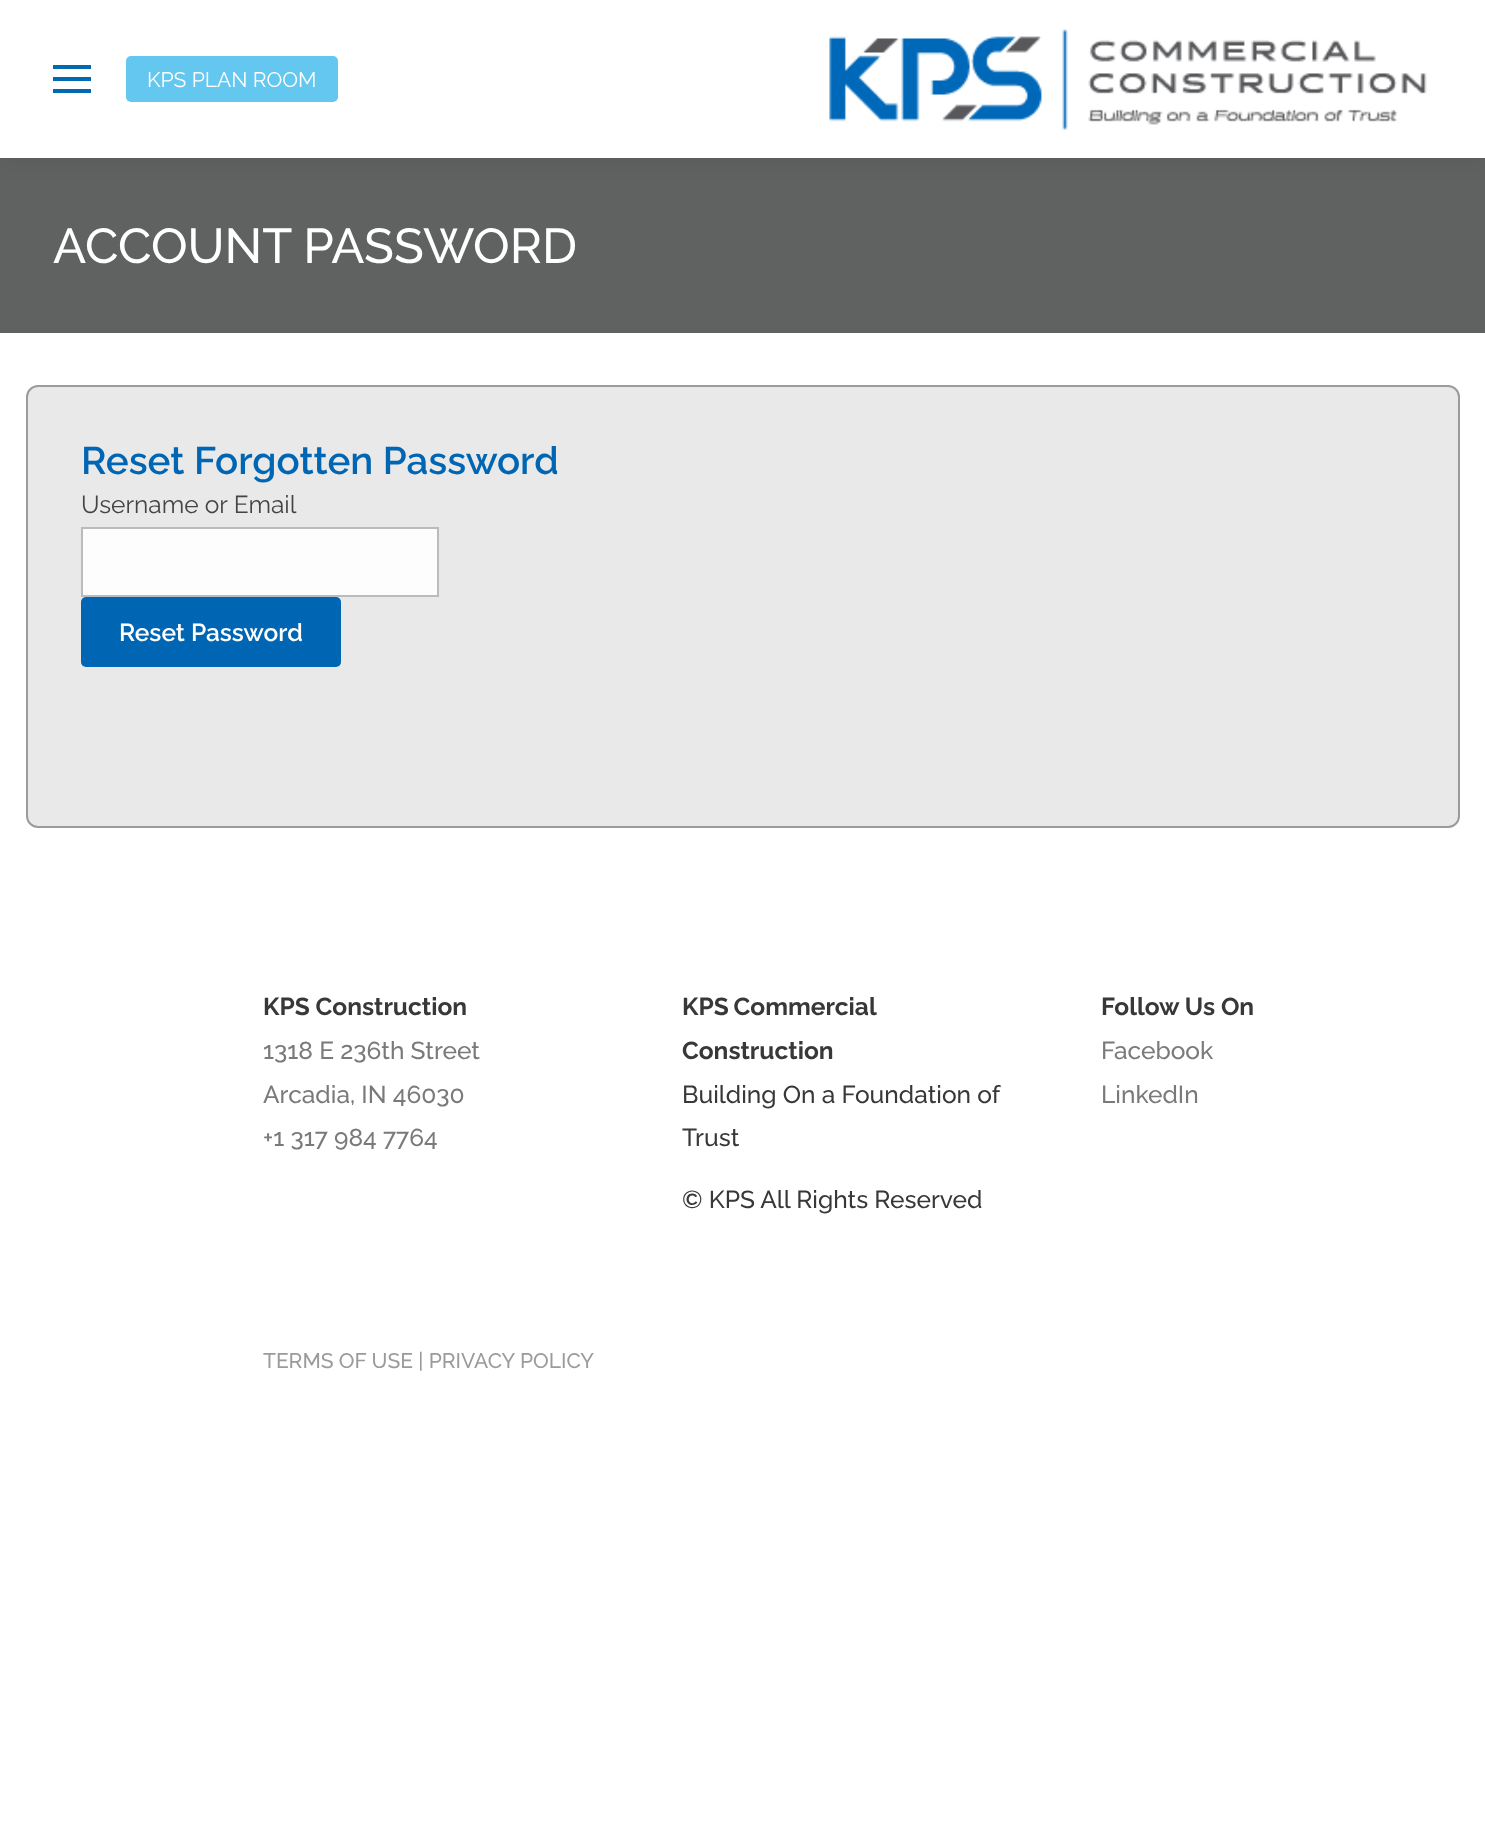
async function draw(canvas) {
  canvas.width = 1485;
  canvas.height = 1838;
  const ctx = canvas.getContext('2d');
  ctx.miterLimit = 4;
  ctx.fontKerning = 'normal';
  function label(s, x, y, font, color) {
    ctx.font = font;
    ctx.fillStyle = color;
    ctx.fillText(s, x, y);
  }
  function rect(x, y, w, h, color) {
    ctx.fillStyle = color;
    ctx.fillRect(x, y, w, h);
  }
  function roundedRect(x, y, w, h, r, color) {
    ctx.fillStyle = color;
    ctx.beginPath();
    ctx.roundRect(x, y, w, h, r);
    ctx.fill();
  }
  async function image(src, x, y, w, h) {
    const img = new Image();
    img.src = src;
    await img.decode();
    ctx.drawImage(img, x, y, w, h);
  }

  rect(0, 0, 1485, 1838, '#fff');
  rect(0, 158, 1485, 175, '#606161');
  ctx.fillStyle = '#00000012';
  ctx.filter = 'blur(13px)';
  ctx.beginPath();
  ctx.rect(-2, -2, 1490, 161);
  ctx.fill();
  ctx.filter = 'none';
  rect(0, 0, 1485, 158, '#fff');
  rect(53, 77, 38, 4, '#006ab1');
  rect(53, 65, 38, 4, '#006ab1');
  rect(53, 89, 38, 4, '#006ab1');
  roundedRect(126, 56, 212, 46, 5, '#63c7ef');
  label('KPS PLAN ROOM', 147, 87, '100 21px Raleway', '#fff');
  await image('assets/img1.png', 829, 29, 598, 101);
  label('ACCOUNT PASSWORD', 53, 263, '500 49px Raleway', '#fff');
  ctx.fillStyle = '#e9e9e9';
  ctx.beginPath();
  ctx.roundRect(27, 386, 1432, 441, 11);
  ctx.fill();
  ctx.strokeStyle = '#9b9b9b';
  ctx.lineWidth = 2;
  ctx.stroke();
  label('Reset Forgotten Password', 81, 474, '600 38.5px Raleway', '#0066b3');
  label('Username or Email', 81, 513, '100 24.5px Raleway', '#444');
  ctx.fillStyle = '#fdfdfd';
  ctx.beginPath();
  ctx.rect(82, 528, 356, 68);
  ctx.fill();
  ctx.strokeStyle = '#bbb';
  ctx.stroke();
  roundedRect(81, 597, 260, 70, 5, '#0066b3');
  label('Reset Password', 119, 641, '600 24.5px Raleway', '#fff');
  label('KPS Construction', 263, 1015, 'bold 24.5px Raleway', '#383838');
  label('1318 E 236th Street', 263, 1059, '500 24.5px Raleway', '#7a7a7a');
  label('Arcadia, IN 46030', 263, 1103, '500 24.5px Raleway', '#7a7a7a');
  label('+1 317 984 7764', 263, 1146, '500 24.5px Raleway', '#7a7a7a');
  ctx.wordSpacing = '-1px';
  label('KPS Commercial', 682, 1015, 'bold 24.5px Raleway', '#383838');
  ctx.wordSpacing = '0px';
  label('Construction', 682, 1059, 'bold 24.5px Raleway', '#383838');
  label('Building On a Foundation of', 682, 1103, '500 24.5px Raleway', '#383838');
  label('Trust', 682, 1146, '500 24.5px Raleway', '#383838');
  label('© KPS All Rights Reserved', 682, 1208, '500 24.5px Raleway', '#383838');
  label('Follow Us On', 1101, 1015, 'bold 24.5px Raleway', '#383838');
  label('Facebook', 1101, 1059, '500 24.5px Raleway', '#7a7a7a');
  label('LinkedIn', 1101, 1103, '500 24.5px Raleway', '#7a7a7a');
  label('TERMS OF USE | PRIVACY POLICY', 263, 1368, '500 21px Raleway', '#9b9b9b');
}

draw(document.querySelector('canvas'));
